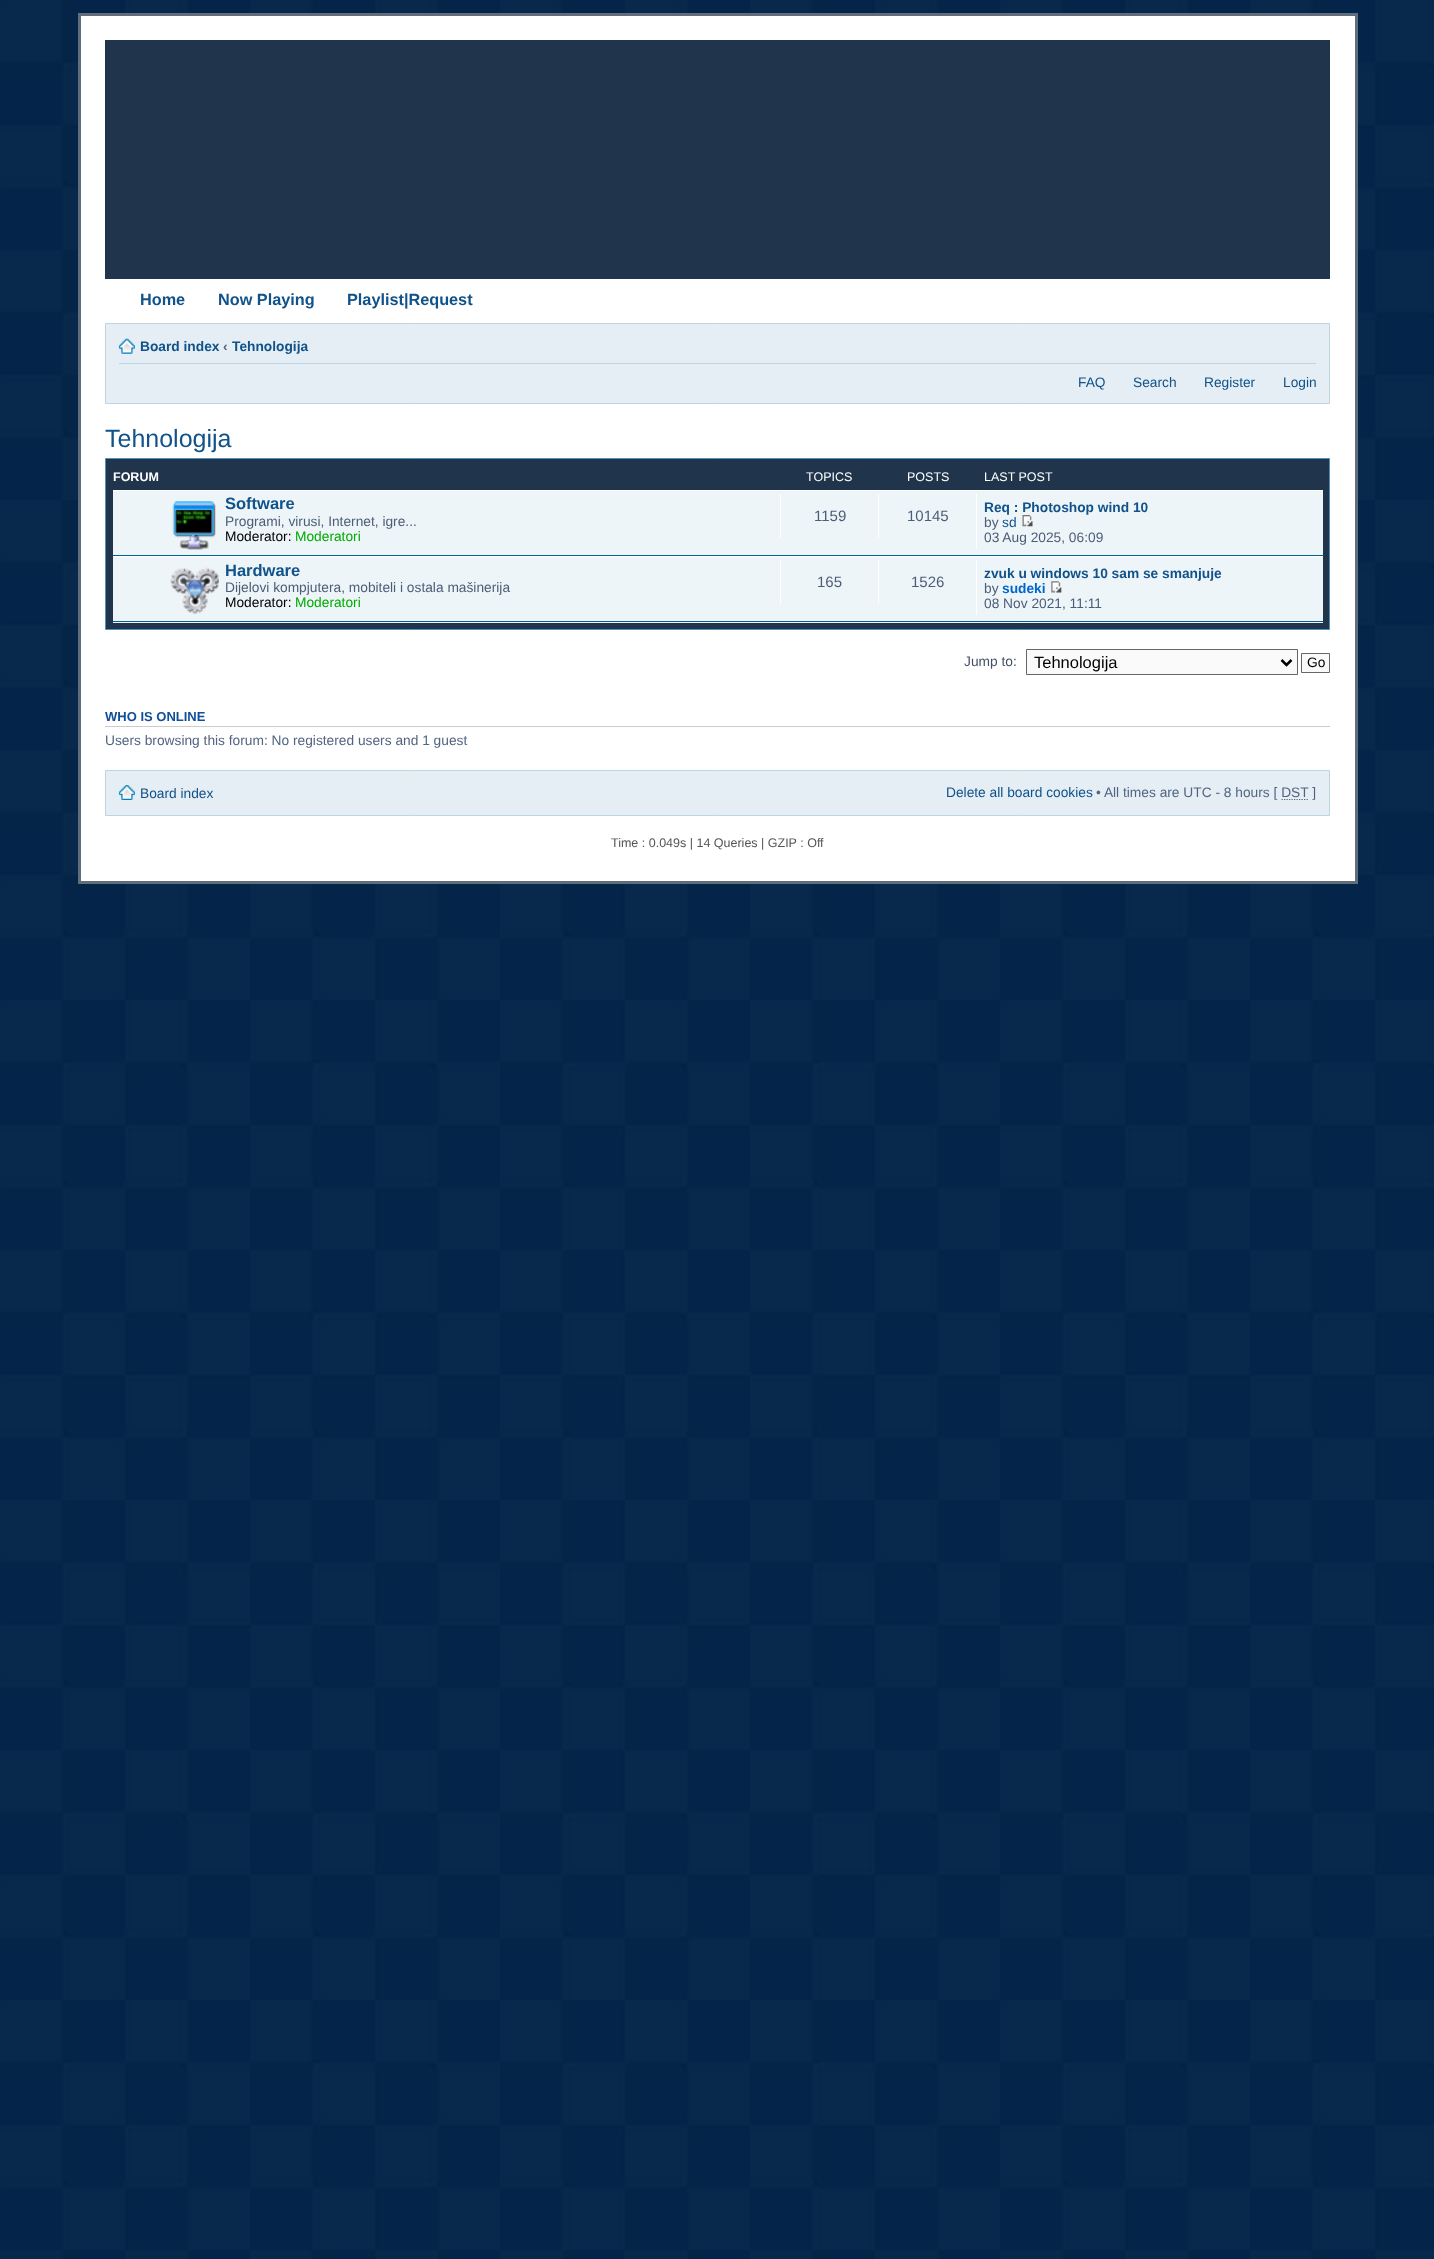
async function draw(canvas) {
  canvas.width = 1434;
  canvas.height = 2259;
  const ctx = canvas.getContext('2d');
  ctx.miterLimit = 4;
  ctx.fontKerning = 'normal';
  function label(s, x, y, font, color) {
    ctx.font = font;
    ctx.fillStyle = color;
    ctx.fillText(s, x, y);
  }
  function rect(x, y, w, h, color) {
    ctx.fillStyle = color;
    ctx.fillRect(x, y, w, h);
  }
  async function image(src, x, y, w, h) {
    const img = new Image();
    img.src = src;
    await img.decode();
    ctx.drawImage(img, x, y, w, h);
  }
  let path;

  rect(0, 0, 1434, 2259, '#fff');
  await image('assets/img1.png', 0, 910, 1434, 1349);
  await image('assets/img2.png', 0, 0, 1434, 910);
  ctx.beginPath();
  ctx.rect(79.5, 14.5, 1277, 868);
  ctx.fill();
  ctx.strokeStyle = '#606e7b';
  ctx.lineWidth = 3;
  ctx.stroke();
  rect(105, 40, 1225, 239, '#20354c');
  label('Home', 140, 305, 'bold 16.25px Liberation Sans', '#105289');
  label('Now Playing', 218, 305, 'bold 16.25px Liberation Sans', '#105289');
  label('Playlist|Request', 347, 305, 'bold 16.25px Liberation Sans', '#105289');
  ctx.fillStyle = '#e5eef5';
  ctx.beginPath();
  ctx.rect(105.5, 323.5, 1224, 80);
  ctx.fill();
  ctx.strokeStyle = '#bcd4e3';
  ctx.lineWidth = 1;
  ctx.stroke();
  rect(119, 363, 1197, 1, '#bcd4e3');
  await image('assets/img3.png', 118, 338, 17, 16);
  label('Board index', 140, 351, 'bold 13.75px Liberation Sans', '#105289');
  label('‹', 223, 351, 'bold 13.75px Liberation Sans', '#536482');
  label('Tehnologija', 232, 351, 'bold 13.75px Liberation Sans', '#105289');
  label('FAQ', 1078, 387, '13.75px Liberation Sans', '#105289');
  label('Search', 1133, 387, '13.75px Liberation Sans', '#105289');
  label('Register', 1204, 387, '13.75px Liberation Sans', '#105289');
  label('Login', 1283, 387, '13.75px Liberation Sans', '#105289');
  label('Tehnologija', 105, 447, '25px Liberation Sans', '#105289');
  ctx.fillStyle = '#20354c';
  ctx.beginPath();
  ctx.rect(105.5, 458.5, 1224, 171);
  ctx.fill();
  ctx.strokeStyle = '#4f91b6';
  ctx.stroke();
  label('FORUM', 113, 481, 'bold 12.5px Liberation Sans', '#fff');
  label('TOPICS', 806, 481, '12.5px Liberation Sans', '#fff');
  label('POSTS', 907, 481, '12.5px Liberation Sans', '#fff');
  label('LAST POST', 984, 481, '12.5px Liberation Sans', '#fff');
  rect(113, 491, 1210, 132, '#eef5f9');
  rect(113, 490, 1210, 1, '#fff');
  rect(113, 555, 1210, 1, '#00608f');
  await image('assets/img4.png', 172, 501, 44, 49);
  label('Software', 225, 509, 'bold 16.5px Liberation Sans', '#105289');
  label('Programi, virusi, Internet, igre...', 225, 526, '13.75px Liberation Sans', '#4c5d77');
  label('Moderator:', 225, 541, '13.75px Liberation Sans', '#000');
  label('Moderatori', 295, 541, '13.75px Liberation Sans', '#0a0');
  rect(780, 494, 1, 44, '#fff');
  label('1159', 814, 521, '15px Liberation Sans', '#4c5d77');
  rect(878, 494, 1, 44, '#fff');
  label('10145', 907, 521, '15px Liberation Sans', '#4c5d77');
  rect(976, 494, 1, 55, '#fff');
  label('Req : Photoshop wind 10', 984, 512, 'bold 13.75px Liberation Sans', '#105289');
  label('by', 984, 527, '13.75px Liberation Sans', '#4c5d77');
  label('sd', 1002, 527, '13.75px Liberation Sans', '#105289');
  await image('assets/img5.png', 1022, 515, 11, 12);
  label('03 Aug 2025, 06:09', 984, 542, '13.75px Liberation Sans', '#4c5d77');
  rect(113, 556, 1210, 1, '#fff');
  rect(113, 621, 1210, 1, '#00608f');
  await image('assets/img6.png', 170, 567, 49, 47);
  label('Hardware', 225, 576, 'bold 16.5px Liberation Sans', '#105289');
  label('Dijelovi kompjutera, mobiteli i ostala mašinerija', 225, 592, '13.75px Liberation Sans', '#4c5d77');
  label('Moderator:', 225, 607, '13.75px Liberation Sans', '#000');
  label('Moderatori', 295, 607, '13.75px Liberation Sans', '#0a0');
  rect(780, 560, 1, 44, '#fff');
  label('165', 817, 587, '15px Liberation Sans', '#4c5d77');
  rect(878, 560, 1, 44, '#fff');
  label('1526', 911, 587, '15px Liberation Sans', '#4c5d77');
  rect(976, 560, 1, 55, '#fff');
  label('zvuk u windows 10 sam se smanjuje', 984, 578, 'bold 13.75px Liberation Sans', '#105289');
  label('by', 984, 593, '13.75px Liberation Sans', '#4c5d77');
  label('sudeki', 1002, 593, 'bold 13.75px Liberation Sans', '#06c');
  await image('assets/img7.png', 1051, 581, 11, 12);
  label('08 Nov 2021, 11:11', 984, 608, '13.75px Liberation Sans', '#4c5d77');
  label('Jump to:', 964, 666, '13.75px Liberation Sans', '#425067');
  ctx.fillStyle = '#fafafa';
  ctx.beginPath();
  ctx.rect(1026.5, 649.5, 271, 25);
  ctx.fill();
  ctx.strokeStyle = '#666';
  ctx.stroke();
  path = new Path2D('M1281.5 660L1286.5 665L1291.5 660');
  ctx.strokeStyle = '#000';
  ctx.lineWidth = 2.5;
  ctx.stroke(path);
  label('Tehnologija', 1034, 668, '16.5px Liberation Sans', '#000');
  ctx.fillStyle = '#fafafa';
  ctx.beginPath();
  ctx.rect(1301.5, 653.5, 28, 19);
  ctx.fill();
  ctx.strokeStyle = '#666';
  ctx.lineWidth = 1;
  ctx.stroke();
  label('Go', 1307, 667, '13.75px Liberation Sans', '#000');
  rect(105, 726, 1225, 1, '#ccc');
  label('WHO IS ONLINE', 105, 721, 'bold 13px Liberation Sans', '#115098');
  label('Users browsing this forum: No registered users and 1 guest', 105, 745, '13.75px Liberation Sans', '#536482');
  ctx.fillStyle = '#e5eef5';
  ctx.beginPath();
  ctx.rect(105.5, 770.5, 1224, 45);
  ctx.fill();
  ctx.strokeStyle = '#bcd4e3';
  ctx.stroke();
  await image('assets/img8.png', 118, 785, 17, 15);
  label('Board index', 140, 798, '13.75px Liberation Sans', '#105289');
  label('Delete all board cookies', 946, 797, '13.75px Liberation Sans', '#105289');
  label('• All times are UTC - 8 hours [ DST ]', 1096, 797, '13.75px Liberation Sans', '#536482');
  path = new Path2D('M1281.5 799.5H1308.5');
  ctx.strokeStyle = '#536482';
  ctx.lineWidth = 1.2;
  ctx.setLineDash([1.25, 1.25]);
  ctx.stroke(path);
  label('Time : 0.049s | 14 Queries | GZIP : Off', 611, 847, '12.5px Liberation Sans', '#555');
}

draw(document.querySelector('canvas'));
